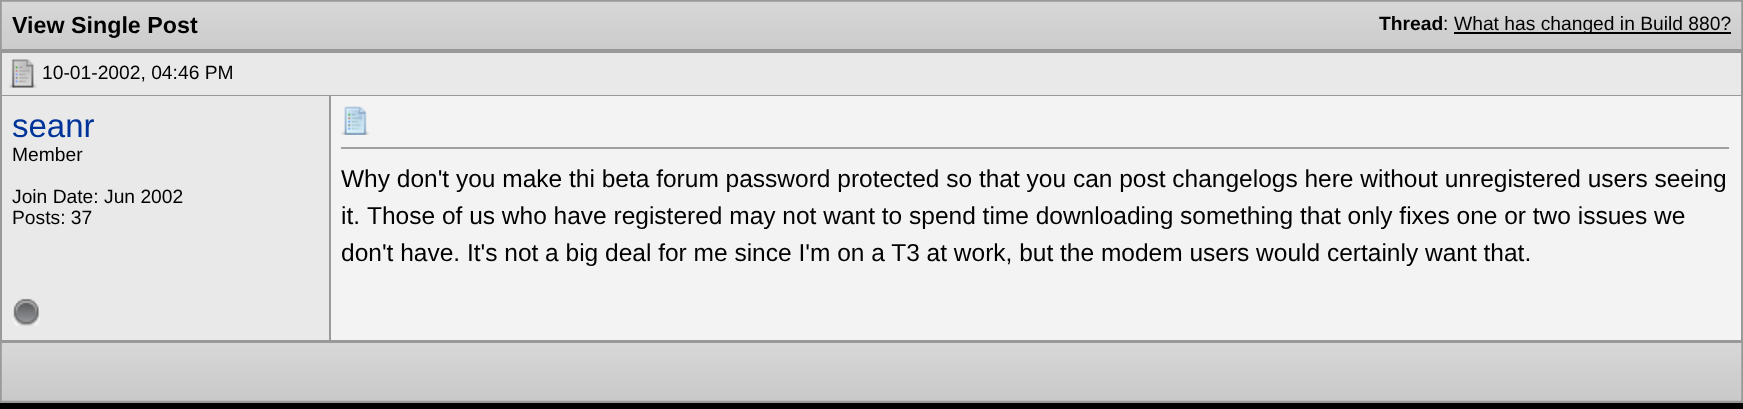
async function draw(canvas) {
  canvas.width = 1743;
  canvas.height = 409;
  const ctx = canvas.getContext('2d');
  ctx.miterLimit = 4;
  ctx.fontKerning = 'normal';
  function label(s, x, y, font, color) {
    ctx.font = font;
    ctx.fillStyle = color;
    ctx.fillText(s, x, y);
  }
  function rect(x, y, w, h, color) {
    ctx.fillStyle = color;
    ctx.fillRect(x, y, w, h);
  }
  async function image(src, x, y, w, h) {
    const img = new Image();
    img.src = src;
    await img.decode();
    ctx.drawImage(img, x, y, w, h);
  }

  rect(0, 0, 1743, 409, '#000');
  rect(0, 0, 1743, 51, '#999');
  await image('assets/img1.png', 1, 1, 1741, 48);
  label('View Single Post', 12, 33, 'bold 23.25px Liberation Sans', '#000');
  label('Thread', 1379, 30, 'bold 19.25px Liberation Sans', '#000');
  label(':', 1443, 30, '19.25px Liberation Sans', '#000');
  rect(1454, 32, 277, 2, '#000');
  label('What has changed in Build 880?', 1454, 30, '19.25px Liberation Sans', '#000');
  rect(2, 53, 1739, 42, '#e9e9e9');
  rect(0, 51, 1743, 2, '#999');
  rect(0, 95, 331, 1, '#999');
  rect(0, 51, 2, 231, '#999');
  await image('assets/img2.png', 9, 59, 28, 29);
  label('10-01-2002, 04:46 PM', 42, 79, '19.25px Liberation Sans', '#000');
  rect(1741, 51, 2, 290, '#999');
  rect(331, 95, 1412, 1, '#999');
  rect(2, 96, 327, 244, '#e9e9e9');
  rect(329, 96, 2, 245, '#999');
  label('seanr', 12, 137, '33px Liberation Sans', '#039');
  label('Member', 12, 161, '19.25px Liberation Sans', '#000');
  label('Join Date: Jun 2002', 12, 203, '19.25px Liberation Sans', '#000');
  label('Posts: 37', 12, 224, '19.25px Liberation Sans', '#000');
  rect(331, 96, 1410, 244, '#f3f3f3');
  await image('assets/img3.png', 341, 106, 28, 29);
  rect(341, 147, 1390, 2, '#9f9f9f');
  rect(1729, 147, 2, 2, '#eee');
  label('Why don\'t you make thi beta forum password protected so that you can post changelogs here without unregistered users seeing', 341, 187, '24.5px Liberation Sans', '#000');
  label('it.', 341, 224, '24.5px Liberation Sans', '#000');
  label('Those of us who have registered may not want to spend time downloading something that only fixes one or two issues we', 367, 224, '24.5px Liberation Sans', '#000');
  label('don\'t have. It\'s not a big deal for me since I\'m on a T3 at work, but the modem users would certainly want that.', 341, 261, '24.5px Liberation Sans', '#000');
  rect(0, 340, 1743, 63, '#999');
  rect(0, 282, 2, 59, '#999');
  await image('assets/img4.png', 12, 298, 29, 28);
  await image('assets/img5.png', 1, 343, 1741, 58);
}

draw(document.querySelector('canvas'));
